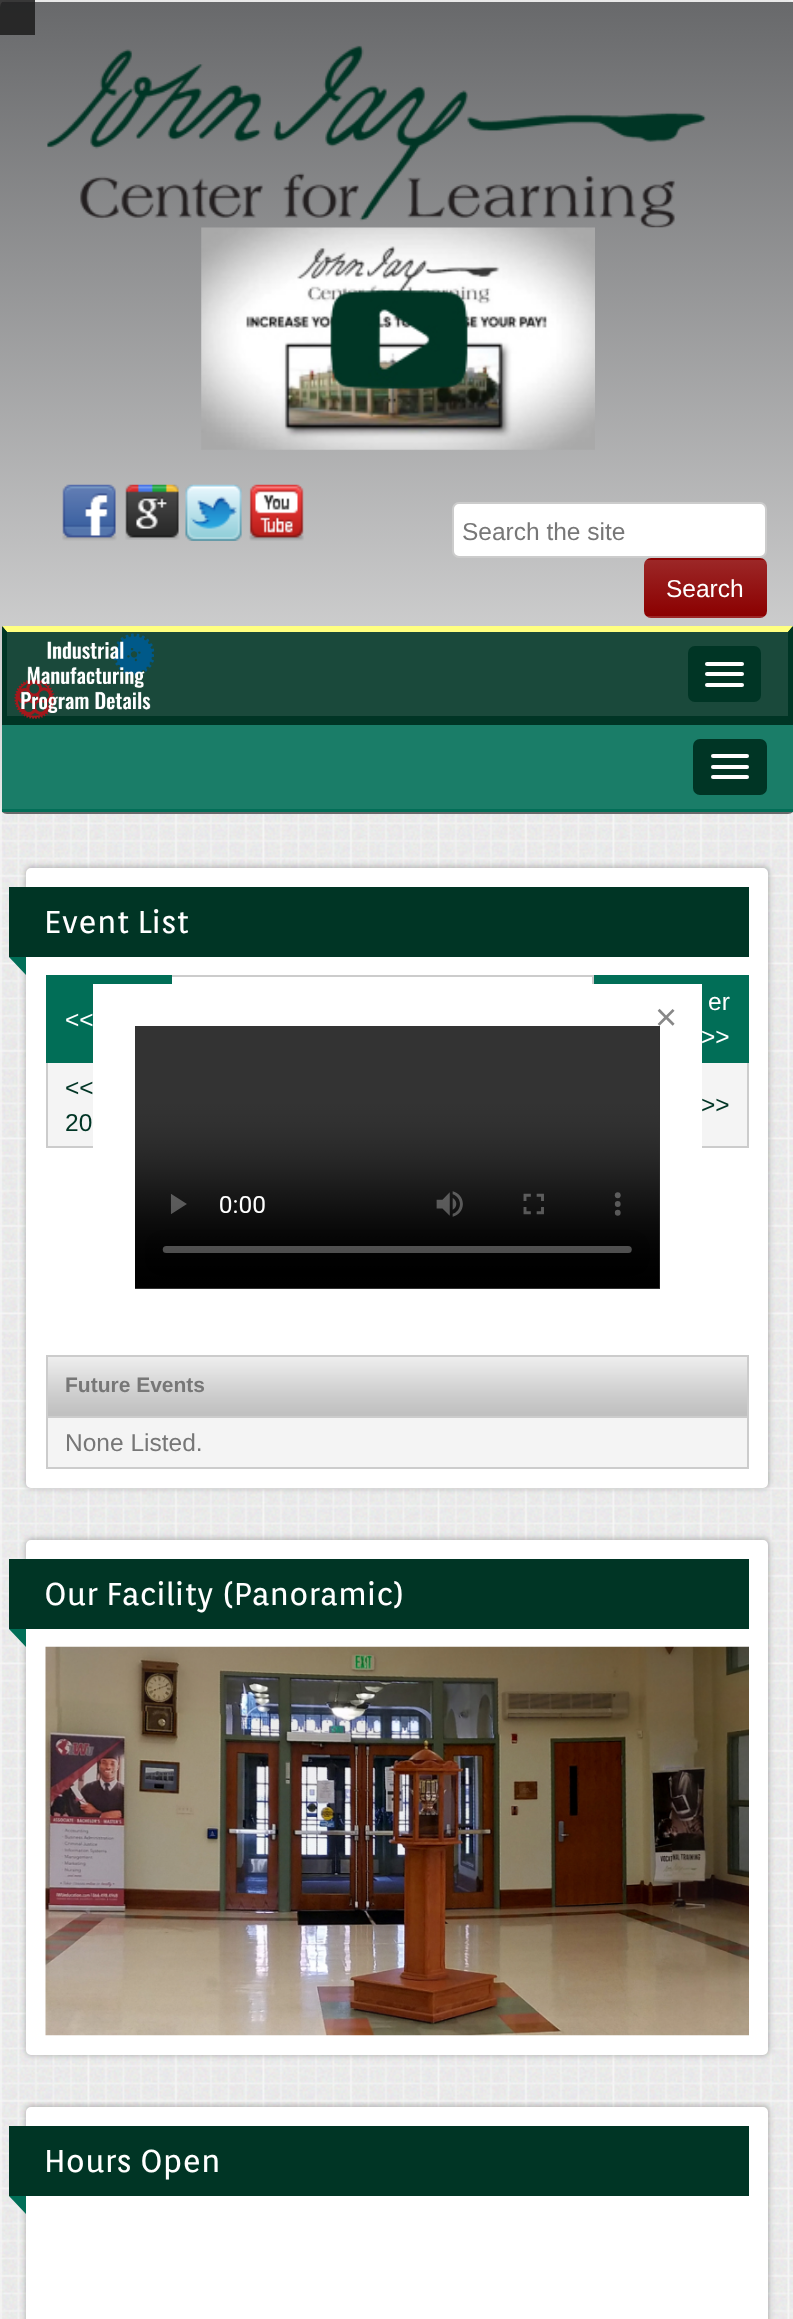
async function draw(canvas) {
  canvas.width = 793;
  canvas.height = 2319;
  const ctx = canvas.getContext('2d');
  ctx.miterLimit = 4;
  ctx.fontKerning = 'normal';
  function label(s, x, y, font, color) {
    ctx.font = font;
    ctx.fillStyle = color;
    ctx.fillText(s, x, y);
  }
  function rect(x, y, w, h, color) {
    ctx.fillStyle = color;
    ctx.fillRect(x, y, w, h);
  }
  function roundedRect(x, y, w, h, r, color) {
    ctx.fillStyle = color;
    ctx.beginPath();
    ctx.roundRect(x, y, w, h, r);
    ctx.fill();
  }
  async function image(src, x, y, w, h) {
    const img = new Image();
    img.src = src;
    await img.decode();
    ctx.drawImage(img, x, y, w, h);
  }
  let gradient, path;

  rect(0, 0, 793, 2319, '#fff');
  await image('assets/img1.png', 0, 0, 793, 2319);
  ctx.save();
  ctx.beginPath();
  ctx.roundRect(0, 0, 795, 814, 7);
  ctx.clip();
  gradient = ctx.createLinearGradient(397, -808, 397, 1.8);
  gradient.addColorStop(0, '#68696b');
  gradient.addColorStop(1, '#e9e9e9');
  ctx.fillStyle = gradient;
  ctx.fillRect(0, 0, 793, 2);
  gradient = ctx.createLinearGradient(397, 1.7, 397, 812);
  gradient.addColorStop(0, '#68696b');
  gradient.addColorStop(1, '#e9e9e9');
  ctx.fillStyle = gradient;
  ctx.fillRect(0, 2, 793, 810);
  gradient = ctx.createLinearGradient(397, 812, 397, 1622);
  gradient.addColorStop(0, '#68696b');
  gradient.addColorStop(1, '#e9e9e9');
  ctx.fillStyle = gradient;
  ctx.fillRect(0, 812, 793, 2);
  ctx.restore();
  await image('assets/img2.png', 47, 45, 659, 183);
  await image('assets/img3.png', 201, 227, 394, 223);
  await image('assets/img4.png', 62, 484, 55, 57);
  await image('assets/img5.png', 125, 484, 55, 56);
  await image('assets/img6.png', 185, 484, 57, 57);
  await image('assets/img7.png', 249, 484, 55, 57);
  ctx.beginPath();
  ctx.roundRect(453, 503, 313, 54, 6);
  ctx.fill();
  ctx.strokeStyle = '#ccc';
  ctx.lineWidth = 2;
  ctx.stroke();
  label('Search the site', 462, 540, '24.5px Liberation Sans', '#777');
  ctx.save();
  ctx.beginPath();
  ctx.roundRect(644, 558, 123, 60, 7);
  ctx.clip();
  gradient = ctx.createLinearGradient(705, 504, 705, 560);
  gradient.addColorStop(0, '#9c2727');
  gradient.addColorStop(1, '#8b0000');
  ctx.fillStyle = gradient;
  ctx.fillRect(644, 558, 123, 2);
  gradient = ctx.createLinearGradient(705, 560, 705, 616);
  gradient.addColorStop(0, '#9c2727');
  gradient.addColorStop(1, '#8b0000');
  ctx.fillStyle = gradient;
  ctx.fillRect(644, 560, 123, 56);
  gradient = ctx.createLinearGradient(705, 616, 705, 672);
  gradient.addColorStop(0, '#9c2727');
  gradient.addColorStop(1, '#8b0000');
  ctx.fillStyle = gradient;
  ctx.fillRect(644, 616, 123, 2);
  ctx.restore();
  label('Search', 666, 597, '24.5px Liberation Sans', '#fff');
  rect(2, 627, 791, 98, '#003525');
  ctx.fillStyle = '#ffff80';
  path = new Path2D('M2 626H793L788 632H7Z');
  ctx.fill(path);
  ctx.fillStyle = '#003525';
  path = new Path2D('M793 626V724L788 719V632Z');
  ctx.fill(path);
  path = new Path2D('M2 724V626L7 632V719Z');
  ctx.fill(path);
  rect(7, 632, 781, 84, '#1a493b');
  roundedRect(688, 646, 73, 56, 7, '#003525');
  roundedRect(705, 662, 39, 4, 2, '#fff');
  roundedRect(705, 672, 39, 4, 2, '#fff');
  roundedRect(705, 683, 39, 4, 2, '#fff');
  await image('assets/img8.png', 14, 633, 140, 86);
  rect(2, 809, 791, 3, '#016e57');
  rect(2, 725, 791, 84, '#1a7d68');
  roundedRect(693, 739, 74, 56, 7, '#003525');
  roundedRect(711, 754, 38, 4, 2, '#fff');
  roundedRect(711, 765, 38, 4, 2, '#fff');
  roundedRect(711, 775, 38, 4, 2, '#fff');
  ctx.fillStyle = '#00000033';
  ctx.filter = 'blur(2.5px)';
  ctx.beginPath();
  ctx.roundRect(25, 866, 745, 623, 7);
  ctx.fill();
  ctx.filter = 'none';
  ctx.fillStyle = '#fff';
  ctx.beginPath();
  ctx.roundRect(27, 869, 740, 618, 4);
  ctx.fill();
  ctx.strokeStyle = '#fff';
  ctx.stroke();
  rect(9, 887, 740, 70, '#003525');
  label('Event List', 44, 933, '31.5px Orienta', '#fff');
  ctx.fillStyle = '#016e57';
  path = new Path2D('M26 957V975L9 957Z');
  ctx.fill(path);
  rect(592, 975, 157, 2, '#016e57');
  rect(170, 975, 423, 2, '#ccc');
  rect(592, 975, 2, 9, '#ccc');
  rect(48, 977, 122, 84, '#016e57');
  rect(46, 975, 126, 2, '#016e57');
  rect(170, 975, 2, 9, '#016e57');
  rect(46, 1146, 47, 2, '#ccc');
  rect(46, 1061, 2, 87, '#ccc');
  rect(46, 1061, 47, 2, '#016e57');
  rect(46, 975, 2, 87, '#016e57');
  label('<<', 65, 1028, '24.5px Liberation Sans', '#fff');
  rect(594, 977, 153, 84, '#016e57');
  rect(747, 1061, 2, 87, '#ccc');
  rect(747, 975, 2, 87, '#016e57');
  rect(702, 1061, 47, 2, '#016e57');
  label('er', 708, 1010, '24.5px Liberation Sans', '#fff');
  label('>>', 701, 1045, '24.5px Liberation Sans', '#fff');
  rect(48, 1063, 45, 83, '#f4f4f4');
  label('<<', 65, 1096, '24.5px Liberation Sans', '#003525');
  label('20', 65, 1131, '24.5px Liberation Sans', '#003525');
  rect(702, 1063, 45, 83, '#f4f4f4');
  rect(702, 1146, 47, 2, '#ccc');
  label('>>', 701, 1113, '24.5px Liberation Sans', '#003525');
  await image('assets/img9.png', 48, 1357, 699, 59);
  rect(46, 1355, 703, 2, '#ccc');
  rect(46, 1416, 703, 2, '#ccc');
  rect(747, 1416, 2, 52, '#ccc');
  rect(747, 1355, 2, 63, '#ccc');
  rect(46, 1467, 703, 2, '#ccc');
  rect(46, 1416, 2, 52, '#ccc');
  rect(46, 1355, 2, 63, '#ccc');
  label('Future Events', 65, 1392, 'bold 21px Liberation Sans', '#777');
  rect(48, 1418, 699, 49, '#f4f4f4');
  label('None Listed.', 65, 1451, '24.5px Liberation Sans', '#777');
  ctx.fillStyle = '#00000033';
  ctx.filter = 'blur(2.5px)';
  ctx.beginPath();
  ctx.roundRect(25, 1538, 745, 518, 7);
  ctx.fill();
  ctx.filter = 'none';
  ctx.fillStyle = '#fff';
  ctx.beginPath();
  ctx.roundRect(27, 1541, 740, 513, 4);
  ctx.fill();
  ctx.stroke();
  rect(9, 1559, 740, 70, '#003525');
  label('Our Facility (Panoramic)', 44, 1605, '31.5px Orienta', '#fff');
  ctx.fillStyle = '#016e57';
  path = new Path2D('M26 1629V1647L9 1629Z');
  ctx.fill(path);
  await image('assets/img10.png', 45, 1646, 704, 390);
  ctx.fillStyle = '#00000033';
  ctx.filter = 'blur(2.5px)';
  ctx.beginPath();
  ctx.roundRect(25, 2105, 745, 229, 7);
  ctx.fill();
  ctx.filter = 'none';
  ctx.fillStyle = '#fff';
  ctx.beginPath();
  ctx.roundRect(27, 2108, 740, 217, 4);
  ctx.fill();
  ctx.stroke();
  rect(9, 2126, 740, 70, '#003525');
  label('Hours Open', 44, 2172, '31.5px Orienta', '#fff');
  ctx.fillStyle = '#016e57';
  path = new Path2D('M26 2196V2214L9 2196Z');
  ctx.fill(path);
  rect(0, 0, 35, 35, '#1e1e1ede');
  rect(93, 984, 609, 77, '#fff');
  label('×', 655, 1030, '38px Liberation Sans', '#888');
  await image('assets/img11.png', 135, 1026, 525, 263);
}

draw(document.querySelector('canvas'));
